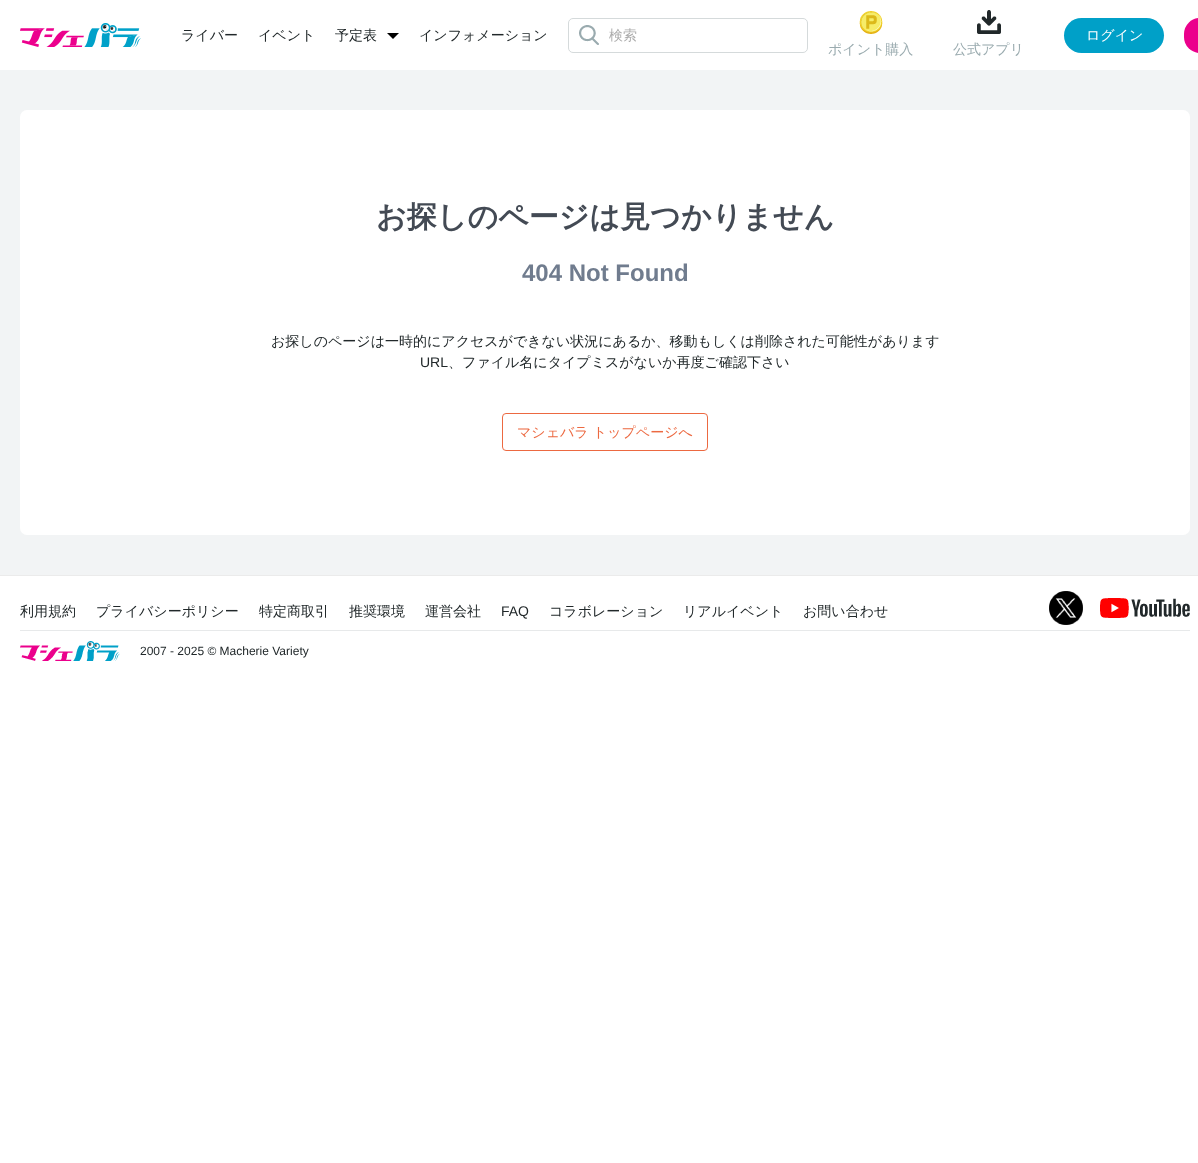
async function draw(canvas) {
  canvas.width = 1198;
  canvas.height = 1163;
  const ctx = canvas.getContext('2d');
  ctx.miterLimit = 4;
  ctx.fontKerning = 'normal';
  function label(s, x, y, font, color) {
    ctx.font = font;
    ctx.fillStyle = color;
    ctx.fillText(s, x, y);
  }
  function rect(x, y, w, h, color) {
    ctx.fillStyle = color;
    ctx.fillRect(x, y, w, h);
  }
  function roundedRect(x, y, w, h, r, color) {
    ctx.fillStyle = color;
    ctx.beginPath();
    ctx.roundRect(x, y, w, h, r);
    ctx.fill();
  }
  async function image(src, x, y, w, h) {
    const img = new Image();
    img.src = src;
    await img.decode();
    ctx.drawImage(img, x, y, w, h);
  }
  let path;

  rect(0, 0, 1198, 1163, '#fff');
  await image('assets/img1.png', 20, 23, 121, 24);
  label('ライバー', 181, 40, '500 14px WenQuanYi Zen Hei', '#21282a');
  label('イベント', 258, 40, '500 14px WenQuanYi Zen Hei', '#21282a');
  label('予定表', 335, 40, '500 14px WenQuanYi Zen Hei', '#21282a');
  ctx.fillStyle = '#000';
  path = new Path2D('M387 33H399L393 39Z');
  ctx.fill(path);
  label('インフォメーション', 419, 40, '500 14px WenQuanYi Zen Hei', '#21282a');
  await image('assets/img2.png', 579, 25, 20, 20);
  ctx.beginPath();
  ctx.roundRect(568.5, 18.5, 239, 34, 4.5);
  ctx.strokeStyle = '#d5dadb';
  ctx.stroke();
  label('検索', 609, 40, '500 14px WenQuanYi Zen Hei', '#acacac');
  roundedRect(1064, 18, 100, 35, 17.5, '#00a0c8');
  label('ログイン', 1086, 40, '500 14px WenQuanYi Zen Hei', '#fff');
  roundedRect(1184, 18, 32, 35, 17.5, '#eb008c');
  await image('assets/img3.png', 859, 11, 24, 23);
  label('ポイント購入', 828, 54, '500 14px WenQuanYi Zen Hei', '#9aabaf');
  await image('assets/img4.png', 977, 10, 24, 24);
  label('公式アプリ', 953, 54, '500 14px WenQuanYi Zen Hei', '#9aabaf');
  rect(0, 70, 1198, 505, '#f2f4f5');
  roundedRect(20, 110, 1170, 425, 7, '#fff');
  label('お探しのページは見つかりません', 376, 227, 'bold 30px WenQuanYi Zen Hei', '#434a54');
  label('404 Not Found', 522, 281, 'bold 24px Liberation Sans', '#707c8e');
  label('お探しのページは一時的にアクセスができない状況にあるか、移動もしくは削除された可能性があります', 271, 346, '500 14px WenQuanYi Zen Hei', '#21282a');
  label('URL', 420, 367, '14px Liberation Sans', '#21282a');
  label('、ファイル名にタイプミスがないか再度ご確認下さい', 448, 367, '500 14px WenQuanYi Zen Hei', '#21282a');
  ctx.beginPath();
  ctx.roundRect(502.5, 413.5, 205, 37, 3.5);
  ctx.strokeStyle = '#ec6941';
  ctx.stroke();
  label('マシェバラ トップページへ', 517, 437, '500 14px WenQuanYi Zen Hei', '#ec6941');
  rect(0, 575, 1198, 1, '#ebebeb');
  label('利用規約', 20, 616, '500 14px WenQuanYi Zen Hei', '#21282a');
  label('プライバシーポリシー', 96, 616, '500 14px WenQuanYi Zen Hei', '#21282a');
  label('特定商取引', 259, 616, '500 14px WenQuanYi Zen Hei', '#21282a');
  label('推奨環境', 349, 616, '500 14px WenQuanYi Zen Hei', '#21282a');
  label('運営会社', 425, 616, '500 14px WenQuanYi Zen Hei', '#21282a');
  label('FAQ', 501, 616, '14px Liberation Sans', '#21282a');
  label('コラボレーション', 549, 616, '500 14px WenQuanYi Zen Hei', '#21282a');
  label('リアルイベント', 683, 616, '500 14px WenQuanYi Zen Hei', '#21282a');
  label('お問い合わせ', 803, 616, '500 14px WenQuanYi Zen Hei', '#21282a');
  await image('assets/img5.png', 1049, 591, 34, 34);
  await image('assets/img6.png', 1100, 598, 90, 20);
  rect(20, 630, 1170, 1, '#e7e9ea');
  await image('assets/img7.png', 20, 641, 100, 20);
  label('2007 - 2025 © Macherie Variety', 140, 655, '12px Liberation Sans', '#21282a');
}

draw(document.querySelector('canvas'));
